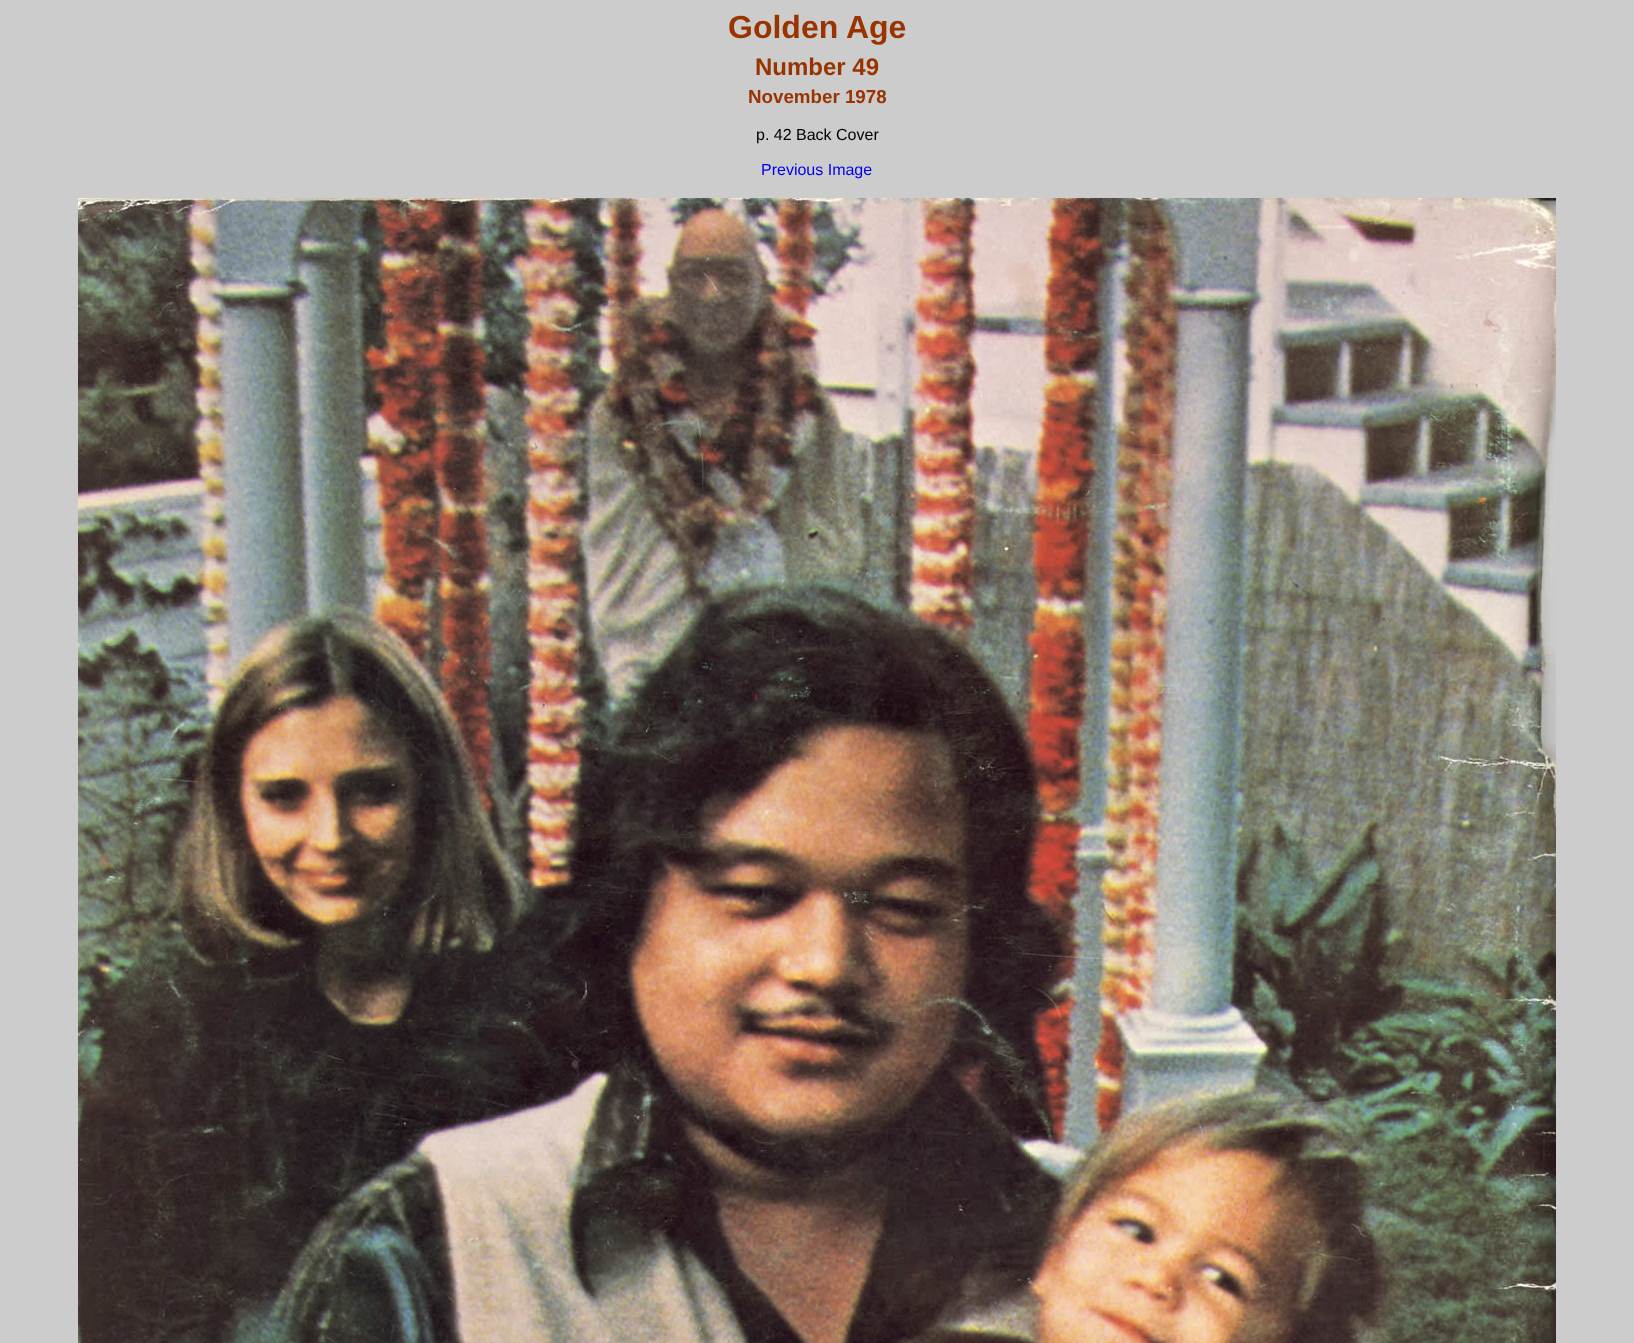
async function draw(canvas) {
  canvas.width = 1634;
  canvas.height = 1343;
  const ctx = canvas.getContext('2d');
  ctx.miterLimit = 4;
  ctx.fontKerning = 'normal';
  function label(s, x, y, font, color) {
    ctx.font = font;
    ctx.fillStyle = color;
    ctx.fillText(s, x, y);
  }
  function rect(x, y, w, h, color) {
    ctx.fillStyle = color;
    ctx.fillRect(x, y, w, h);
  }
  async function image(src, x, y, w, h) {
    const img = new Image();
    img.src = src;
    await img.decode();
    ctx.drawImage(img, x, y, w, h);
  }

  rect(0, 0, 1634, 1343, '#ccc');
  label('Golden Age', 728, 38, 'bold 32px Liberation Sans', '#930');
  label('Number 49', 755, 75, 'bold 24px Liberation Sans', '#930');
  label('November 1978', 748, 103, 'bold 18.75px Liberation Sans', '#930');
  label('p. 42 Back Cover', 756, 140, '16px Liberation Sans', '#000');
  label('Previous Image', 761, 175, '16px Liberation Sans', '#00e');
  await image('assets/img1.png', 78, 198, 1478, 1145);
}

draw(document.querySelector('canvas'));
